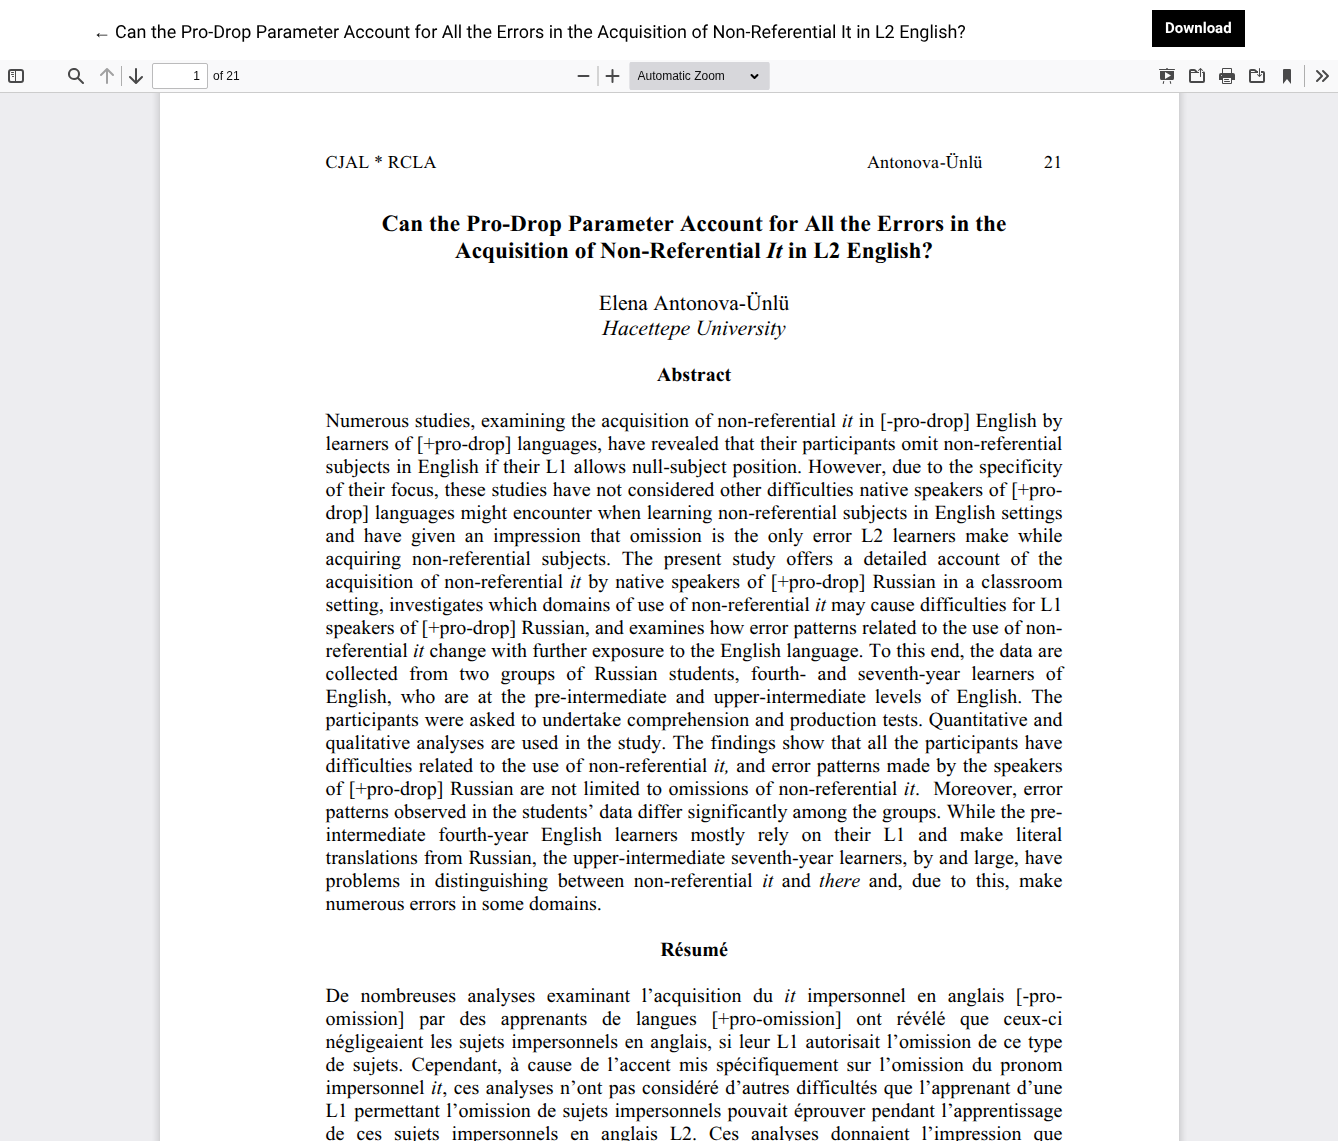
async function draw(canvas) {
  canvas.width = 1338;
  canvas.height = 1141;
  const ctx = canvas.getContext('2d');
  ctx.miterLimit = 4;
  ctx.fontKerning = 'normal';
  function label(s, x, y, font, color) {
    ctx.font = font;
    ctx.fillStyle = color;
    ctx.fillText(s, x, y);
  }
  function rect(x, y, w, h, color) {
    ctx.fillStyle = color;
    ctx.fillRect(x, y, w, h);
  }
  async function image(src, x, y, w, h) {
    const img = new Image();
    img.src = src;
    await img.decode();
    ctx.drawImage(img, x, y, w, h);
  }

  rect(0, 0, 1338, 1141, '#fff');
  label('←', 93, 38, '18px Liberation Sans', '#000');
  label('Can the Pro-Drop Parameter Account for All the Errors in the Acquisition of Non-Referential It in L2 English?', 115, 38, '18px Roboto', '#000');
  rect(1152, 10, 93, 37, '#000');
  label('Download', 1165, 33, 'bold 15px Roboto', '#fff');
  await image('assets/img1.png', 0, 60, 1338, 1081);
}

draw(document.querySelector('canvas'));
